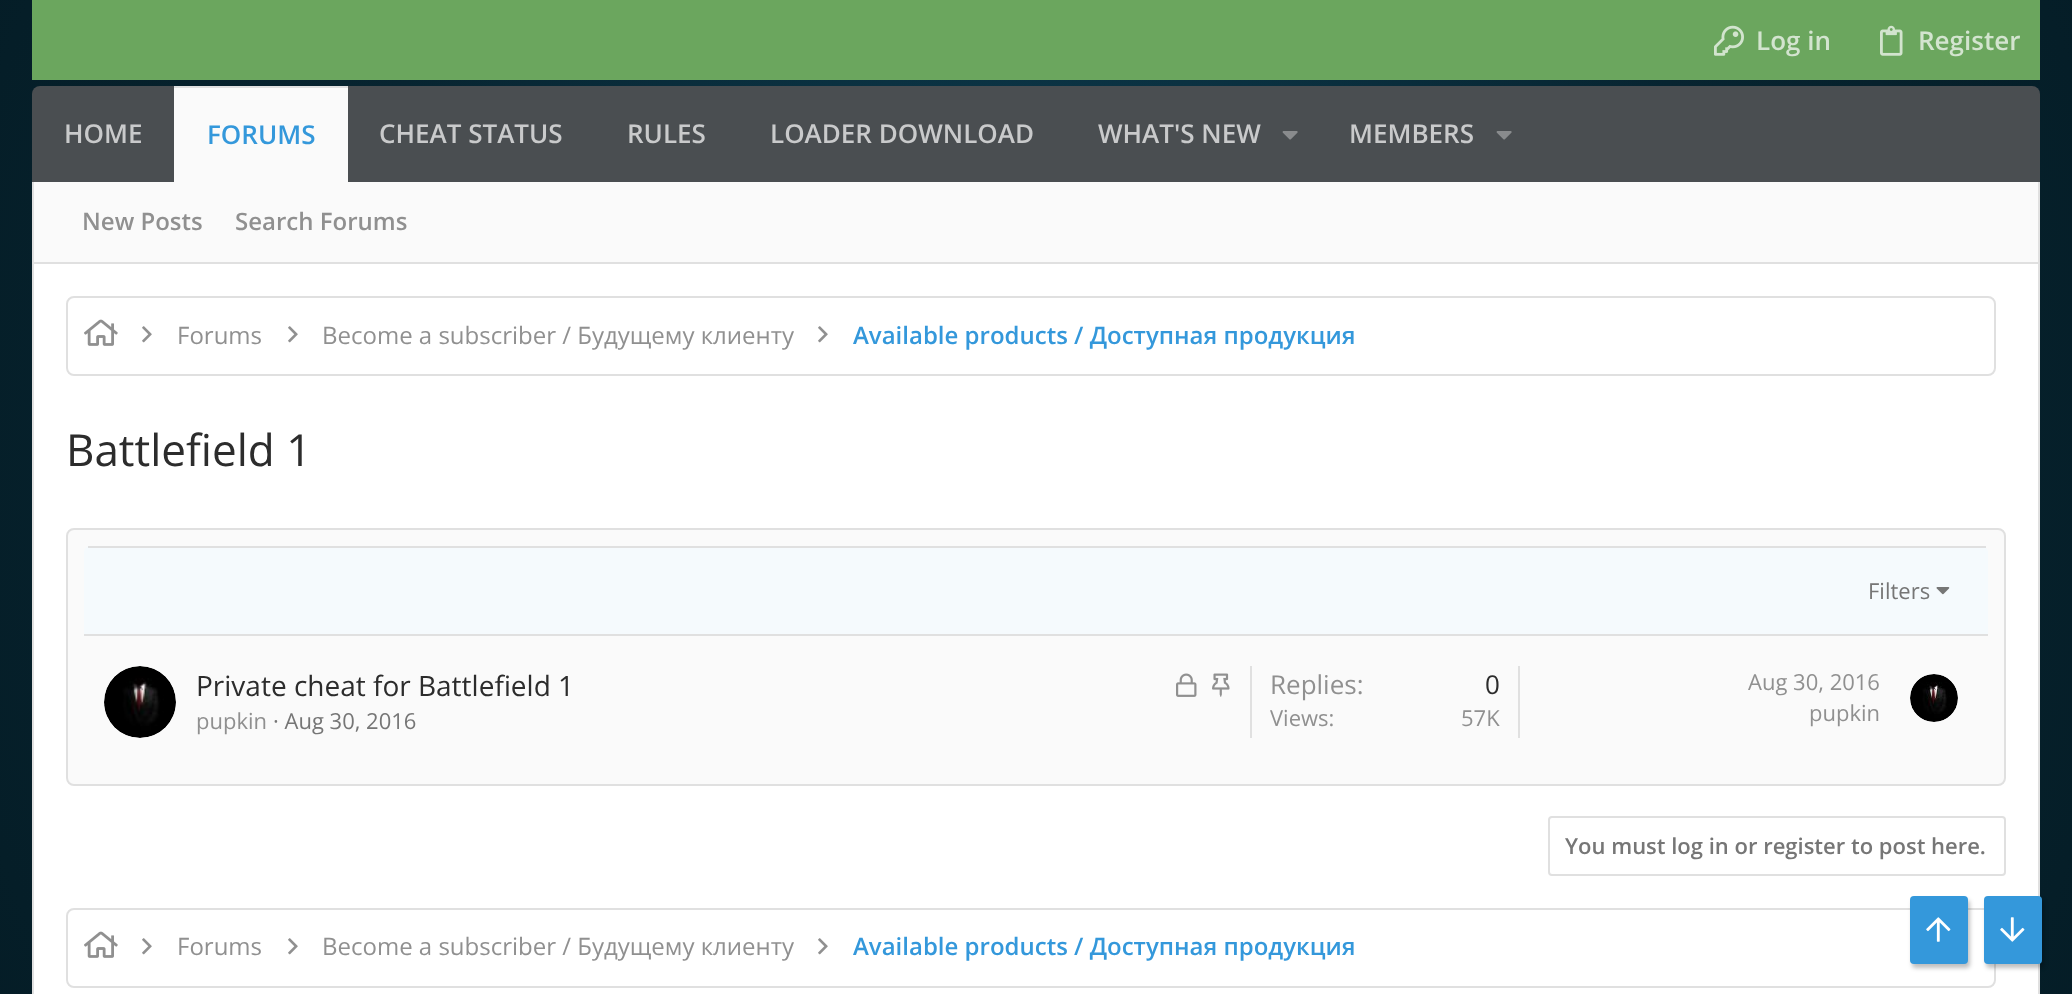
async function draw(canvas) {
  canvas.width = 2072;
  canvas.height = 994;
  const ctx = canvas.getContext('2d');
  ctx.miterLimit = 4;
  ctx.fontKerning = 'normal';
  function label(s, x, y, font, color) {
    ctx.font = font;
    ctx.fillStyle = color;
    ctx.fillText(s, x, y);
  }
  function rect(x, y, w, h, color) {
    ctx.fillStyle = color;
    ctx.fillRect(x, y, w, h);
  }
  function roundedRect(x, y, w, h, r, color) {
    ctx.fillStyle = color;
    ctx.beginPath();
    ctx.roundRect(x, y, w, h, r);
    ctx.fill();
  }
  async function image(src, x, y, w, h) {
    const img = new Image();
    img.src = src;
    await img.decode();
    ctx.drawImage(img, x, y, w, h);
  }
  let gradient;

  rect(0, 0, 2072, 994, '#fff');
  gradient = ctx.createRadialGradient(1036, 461, 0, 1036, 461, 1290);
  gradient.addColorStop(0, '#0e4156');
  gradient.addColorStop(0.57, '#072430');
  gradient.addColorStop(1, '#041b24');
  ctx.fillStyle = gradient;
  ctx.fillRect(0, 0, 2072, 994);
  rect(32, 0, 2008, 80, '#6ba65e');
  await image('assets/img1.png', 1714, 25, 30, 31);
  label('Log in', 1756, 50, '600 26px Open Sans', '#d3e4cf');
  await image('assets/img2.png', 1880, 25, 23, 31);
  label('Register', 1918, 50, '600 26px Open Sans', '#d3e4cf');
  ctx.fillStyle = '#4a4e51';
  ctx.beginPath();
  ctx.roundRect(32, 86, 2008, 96, [8, 8, 0, 0]);
  ctx.fill();
  label('HOME', 64, 143, '600 26px Open Sans', '#c9cacb');
  rect(174, 88, 174, 94, '#fafafa');
  rect(174, 86, 174, 2, '#e0e0e0');
  label('FORUMS', 207, 144, '600 26px Open Sans', '#3498db');
  label('CHEAT STATUS', 379, 143, '600 26px Open Sans', '#c9cacb');
  label('RULES', 627, 143, '600 26px Open Sans', '#c9cacb');
  label('LOADER DOWNLOAD', 770, 143, '600 26px Open Sans', '#c9cacb');
  label('WHAT\'S NEW', 1098, 143, '600 26px Open Sans', '#c9cacb');
  await image('assets/img3.png', 1282, 131, 16, 9);
  label('MEMBERS', 1349, 143, '600 26px Open Sans', '#c9cacb');
  await image('assets/img3.png', 1496, 131, 16, 9);
  rect(34, 182, 2004, 80, '#fafafa');
  rect(2038, 182, 2, 80, '#e0e0e0');
  rect(32, 182, 2, 80, '#e0e0e0');
  label('New Posts', 82, 230, '600 24px Open Sans', '#909090');
  label('Search Forums', 235, 230, '600 24px Open Sans', '#909090');
  ctx.fillStyle = '#fff';
  ctx.beginPath();
  ctx.rect(33, 263, 2006, 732);
  ctx.fill();
  ctx.strokeStyle = '#e0e0e0';
  ctx.lineWidth = 2;
  ctx.stroke();
  ctx.beginPath();
  ctx.roundRect(67, 297, 1928, 78, 7);
  ctx.stroke();
  await image('assets/img4.png', 84, 319, 34, 27);
  await image('assets/img5.png', 142, 326, 10, 17);
  label('Forums', 177, 344, '24px Open Sans', '#909090');
  await image('assets/img5.png', 288, 326, 10, 17);
  label('Become a subscriber / Будущему клиенту', 322, 344, '24px Open Sans', '#909090');
  await image('assets/img5.png', 818, 326, 10, 17);
  label('Available products / Доступная продукция', 853, 344, '600 24px Open Sans', '#3498db');
  label('Battlefield 1', 66, 466, '44px Open Sans', '#2c2c2c');
  ctx.fillStyle = '#fafafa';
  ctx.beginPath();
  ctx.roundRect(67, 529, 1938, 256, 7);
  ctx.fill();
  ctx.stroke();
  ctx.fillStyle = '#f5fafd';
  ctx.beginPath();
  ctx.roundRect(84, 546, 1904, 90, [6, 6, 0, 0]);
  ctx.fill();
  rect(88, 546, 1898, 2, '#e0e0e0');
  rect(84, 634, 1904, 2, '#e0e0e0');
  label('Filters', 1868, 599, '22px Open Sans', '#767676');
  await image('assets/img6.png', 1936, 587, 14, 8);
  ctx.fillStyle = '#fff';
  ctx.beginPath();
  ctx.arc(140, 702, 36, 0, 2 * Math.PI);
  ctx.fill();
  await image('assets/img7.png', 104, 666, 72, 72);
  label('Private cheat for Battlefield 1', 196, 696, '28px Open Sans', '#2c2c2c');
  await image('assets/img8.png', 1176, 673, 21, 24);
  await image('assets/img9.png', 1212, 673, 18, 24);
  label('pupkin', 196, 729, '22px Open Sans', '#909090');
  label('· Aug 30, 2016', 273, 729, '22px Open Sans', '#767676');
  rect(1250, 666, 2, 72, '#e0e0e0');
  label('Replies:', 1270, 694, '26px Open Sans', '#909090');
  label('0', 1485, 694, '26px Open Sans', '#2c2c2c');
  rect(1518, 666, 2, 72, '#e0e0e0');
  label('Views:', 1270, 726, '22px Open Sans', '#909090');
  label('57K', 1461, 726, '22px Open Sans', '#909090');
  label('Aug 30, 2016', 1748, 690, '22px Open Sans', '#909090');
  label('pupkin', 1809, 721, '22px Open Sans', '#909090');
  ctx.fillStyle = '#fff';
  ctx.beginPath();
  ctx.arc(1934, 698, 24, 0, 2 * Math.PI);
  ctx.fill();
  await image('assets/img10.png', 1910, 674, 48, 48);
  ctx.beginPath();
  ctx.roundRect(1549, 817, 456, 58, 3);
  ctx.stroke();
  label('You must log in or register to post here.', 1565, 854, '600 22px Open Sans', '#767676');
  ctx.beginPath();
  ctx.roundRect(67, 909, 1928, 78, 7);
  ctx.stroke();
  await image('assets/img4.png', 84, 931, 34, 27);
  await image('assets/img5.png', 142, 938, 10, 17);
  label('Forums', 177, 955, '24px Open Sans', '#909090');
  await image('assets/img5.png', 288, 938, 10, 17);
  label('Become a subscriber / Будущему клиенту', 322, 955, '24px Open Sans', '#909090');
  await image('assets/img5.png', 818, 938, 10, 17);
  label('Available products / Доступная продукция', 853, 955, '600 24px Open Sans', '#3498db');
  ctx.fillStyle = '#00000040';
  ctx.filter = 'blur(2px)';
  ctx.beginPath();
  ctx.roundRect(1912, 900, 58, 68, 4);
  ctx.fill();
  ctx.filter = 'none';
  roundedRect(1910, 896, 58, 68, 4, '#3498db');
  await image('assets/img11.png', 1926, 917, 25, 25);
  ctx.fillStyle = '#00000040';
  ctx.filter = 'blur(2px)';
  ctx.beginPath();
  ctx.roundRect(1986, 900, 58, 68, 4);
  ctx.fill();
  ctx.filter = 'none';
  roundedRect(1984, 896, 58, 68, 4, '#3498db');
  await image('assets/img12.png', 2000, 917, 25, 25);
}

draw(document.querySelector('canvas'));
